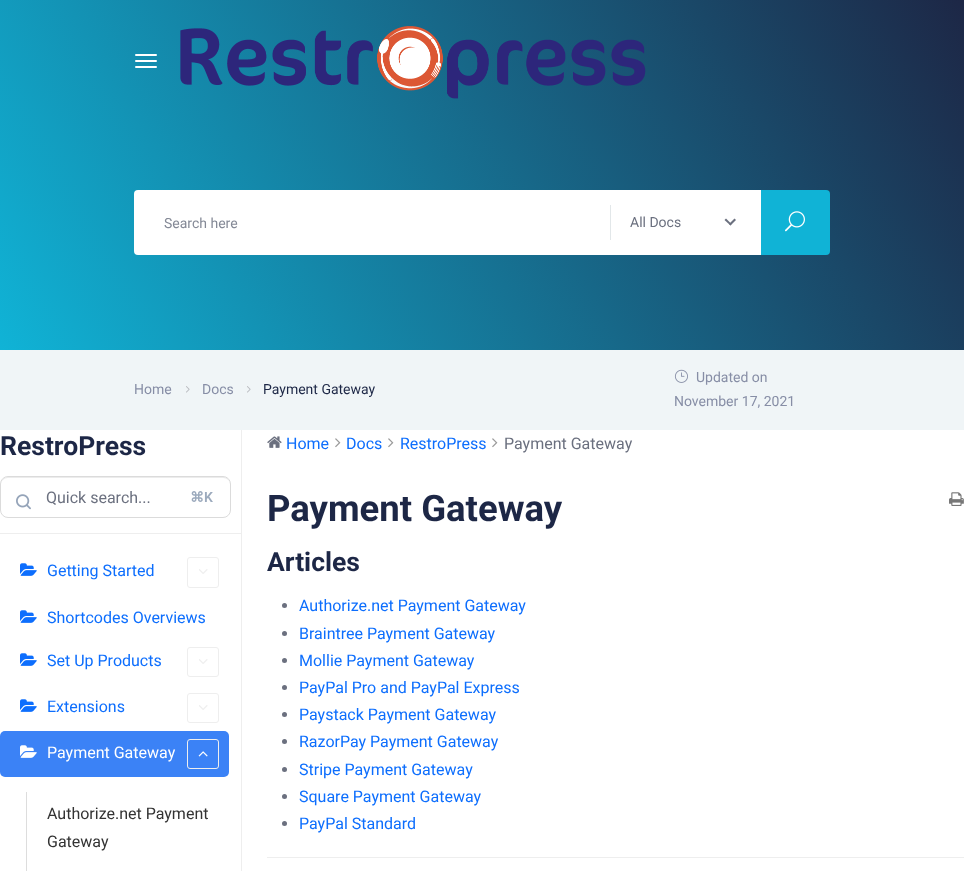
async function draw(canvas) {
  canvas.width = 964;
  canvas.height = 871;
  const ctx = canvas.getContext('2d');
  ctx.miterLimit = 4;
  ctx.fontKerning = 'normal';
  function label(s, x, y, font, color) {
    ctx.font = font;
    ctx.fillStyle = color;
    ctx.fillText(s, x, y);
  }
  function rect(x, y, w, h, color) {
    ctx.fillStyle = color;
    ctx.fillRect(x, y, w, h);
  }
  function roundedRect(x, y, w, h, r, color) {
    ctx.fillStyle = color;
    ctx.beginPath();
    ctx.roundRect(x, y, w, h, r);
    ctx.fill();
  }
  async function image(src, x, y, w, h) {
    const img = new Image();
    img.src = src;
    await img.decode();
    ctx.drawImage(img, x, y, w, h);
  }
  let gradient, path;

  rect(0, 0, 964, 871, '#fff');
  gradient = ctx.createLinearGradient(45, 427, 919, -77);
  gradient.addColorStop(0, '#10b3d6');
  gradient.addColorStop(1, '#1d2746');
  ctx.fillStyle = gradient;
  ctx.fillRect(0, 0, 964, 350);
  roundedRect(135, 54, 22, 2, 1, '#fff');
  roundedRect(135, 60, 22, 2, 1, '#fff');
  roundedRect(135, 66, 22, 2, 1, '#fff');
  await image('assets/img1.png', 180, 26, 466, 73);
  ctx.beginPath();
  ctx.roundRect(134, 190, 477, 65, [4, 0, 0, 4]);
  ctx.fill();
  label('Search here', 164, 228, '14px Roboto', '#848996');
  ctx.fillStyle = '#10b3d6';
  ctx.beginPath();
  ctx.roundRect(760, 190, 70, 65, [0, 4, 4, 0]);
  ctx.fill();
  rect(611, 190, 150, 65, '#fff');
  rect(610, 205, 1, 35, '#e2e7e9');
  label('All Docs', 630, 227, '14px Roboto', '#6b707f');
  path = new Path2D('M734.5 218.5L736 220L730.5 225.5L729 224Z');
  ctx.fill(path);
  path = new Path2D('M726 218.5L731.5 224L730.5 225.5L724.5 220Z');
  ctx.fill(path);
  await image('assets/img2.png', 785, 211, 20, 21);
  rect(0, 350, 964, 80, '#f0f5f7');
  label('Home', 134, 394, '14px Roboto', '#878ea6');
  await image('assets/img3.png', 186, 386, 4, 7);
  label('Docs', 202, 394, '14px Roboto', '#878ea6');
  await image('assets/img3.png', 247, 386, 4, 7);
  label('Payment Gateway', 263, 394, '14px Roboto', '#1d2746');
  await image('assets/img4.png', 674, 369, 14, 14);
  label('Updated on', 696, 382, '14px Roboto', '#878ea6');
  label('November 17, 2021', 674, 406, '14px Roboto', '#878ea6');
  label('RestroPress', 0, 455, 'bold 26.5px Roboto', '#1d2746');
  rect(0, 533, 241, 1, '#eee');
  ctx.fillStyle = '#ececec';
  path = new Path2D('M8 478H223C227 478 230 481 230 485C230 481 228 478 224 477H8C3 477 1 481 1 485C1 481 4 478 8 478Z');
  ctx.fill(path);
  ctx.beginPath();
  ctx.roundRect(0.5, 476.5, 230, 41, 7.5);
  ctx.strokeStyle = '#dbdbdb';
  ctx.stroke();
  await image('assets/img5.png', 16, 494, 15, 16);
  label('Quick search...', 46, 503, '16px Roboto', '#6b707f');
  label('⌘', 190, 502, 'bold 14px DejaVu Sans', '#9caabd');
  label('K', 204, 502, '600 14px Roboto', '#9caabd');
  await image('assets/img6.png', 20, 563, 17, 13);
  label('Getting Started', 47, 576, '16px Roboto', '#0d6efd');
  ctx.beginPath();
  ctx.roundRect(187.5, 557.5, 31, 30, 2.5);
  ctx.strokeStyle = '#eee';
  ctx.stroke();
  await image('assets/img7.png', 199, 569, 9, 5);
  await image('assets/img6.png', 20, 610, 17, 13);
  label('Shortcodes Overviews', 47, 623, '16px Roboto', '#0d6efd');
  await image('assets/img6.png', 20, 653, 17, 13);
  label('Set Up Products', 47, 666, '16px Roboto', '#0d6efd');
  ctx.beginPath();
  ctx.roundRect(187.5, 647.5, 31, 29, 2.5);
  ctx.stroke();
  await image('assets/img7.png', 199, 659, 9, 5);
  await image('assets/img6.png', 20, 699, 17, 13);
  label('Extensions', 47, 712, '16px Roboto', '#0d6efd');
  ctx.beginPath();
  ctx.roundRect(187.5, 693.5, 31, 29, 2.5);
  ctx.stroke();
  await image('assets/img7.png', 199, 705, 9, 5);
  roundedRect(0, 731, 229, 46, 5, '#3b82f6');
  await image('assets/img8.png', 20, 745, 17, 13);
  label('Payment Gateway', 47, 758, '16px Roboto', '#fff');
  ctx.beginPath();
  ctx.roundRect(187.5, 739.5, 31, 29, 2.5);
  ctx.stroke();
  await image('assets/img9.png', 198, 751, 10, 6);
  rect(26, 792, 1, 79, '#ddd');
  label('Authorize.net Payment', 47, 819, '16px Roboto', '#333');
  label('Gateway', 47, 847, '16px Roboto', '#333');
  rect(241, 430, 1, 441, '#eee');
  await image('assets/img10.png', 267, 436, 15, 12);
  label('Home', 286, 449, '16px Roboto', '#0d6efd');
  await image('assets/img11.png', 335, 438, 6, 10);
  label('Docs', 346, 449, '16px Roboto', '#0d6efd');
  await image('assets/img11.png', 388, 438, 6, 10);
  label('RestroPress', 400, 449, '16px Roboto', '#0d6efd');
  await image('assets/img11.png', 492, 438, 6, 10);
  label('Payment Gateway', 504, 449, '16px Roboto', '#6b707f');
  label('Payment Gateway', 267, 521, 'bold 36.5px Roboto', '#1d2746');
  await image('assets/img12.png', 949, 492, 15, 14);
  label('Articles', 267, 571, 'bold 26.5px Roboto', '#1d2746');
  ctx.fillStyle = '#6b707f';
  ctx.beginPath();
  ctx.arc(284.5, 605.5, 2.5, 0, 2 * Math.PI);
  ctx.fill();
  label('Authorize.net Payment Gateway', 299, 611, '16px Roboto', '#0d6efd');
  ctx.fillStyle = '#6b707f';
  ctx.beginPath();
  ctx.arc(284.5, 633.5, 2.5, 0, 2 * Math.PI);
  ctx.fill();
  label('Braintree Payment Gateway', 299, 639, '16px Roboto', '#0d6efd');
  ctx.fillStyle = '#6b707f';
  ctx.beginPath();
  ctx.arc(284.5, 660.5, 2.5, 0, 2 * Math.PI);
  ctx.fill();
  label('Mollie Payment Gateway', 299, 666, '16px Roboto', '#0d6efd');
  ctx.fillStyle = '#6b707f';
  ctx.beginPath();
  ctx.arc(284.5, 687.5, 2.5, 0, 2 * Math.PI);
  ctx.fill();
  label('PayPal Pro and PayPal Express', 299, 693, '16px Roboto', '#0d6efd');
  ctx.fillStyle = '#6b707f';
  ctx.beginPath();
  ctx.arc(284.5, 714.5, 2.5, 0, 2 * Math.PI);
  ctx.fill();
  label('Paystack Payment Gateway', 299, 720, '16px Roboto', '#0d6efd');
  ctx.fillStyle = '#6b707f';
  ctx.beginPath();
  ctx.arc(284.5, 741.5, 2.5, 0, 2 * Math.PI);
  ctx.fill();
  label('RazorPay Payment Gateway', 299, 747, '16px Roboto', '#0d6efd');
  ctx.fillStyle = '#6b707f';
  ctx.beginPath();
  ctx.arc(284.5, 769.5, 2.5, 0, 2 * Math.PI);
  ctx.fill();
  label('Stripe Payment Gateway', 299, 775, '16px Roboto', '#0d6efd');
  ctx.fillStyle = '#6b707f';
  ctx.beginPath();
  ctx.arc(284.5, 796.5, 2.5, 0, 2 * Math.PI);
  ctx.fill();
  label('Square Payment Gateway', 299, 802, '16px Roboto', '#0d6efd');
  ctx.fillStyle = '#6b707f';
  ctx.beginPath();
  ctx.arc(284.5, 823.5, 2.5, 0, 2 * Math.PI);
  ctx.fill();
  label('PayPal Standard', 299, 829, '16px Roboto', '#0d6efd');
  rect(267, 857, 697, 1, '#eee');
}

draw(document.querySelector('canvas'));
